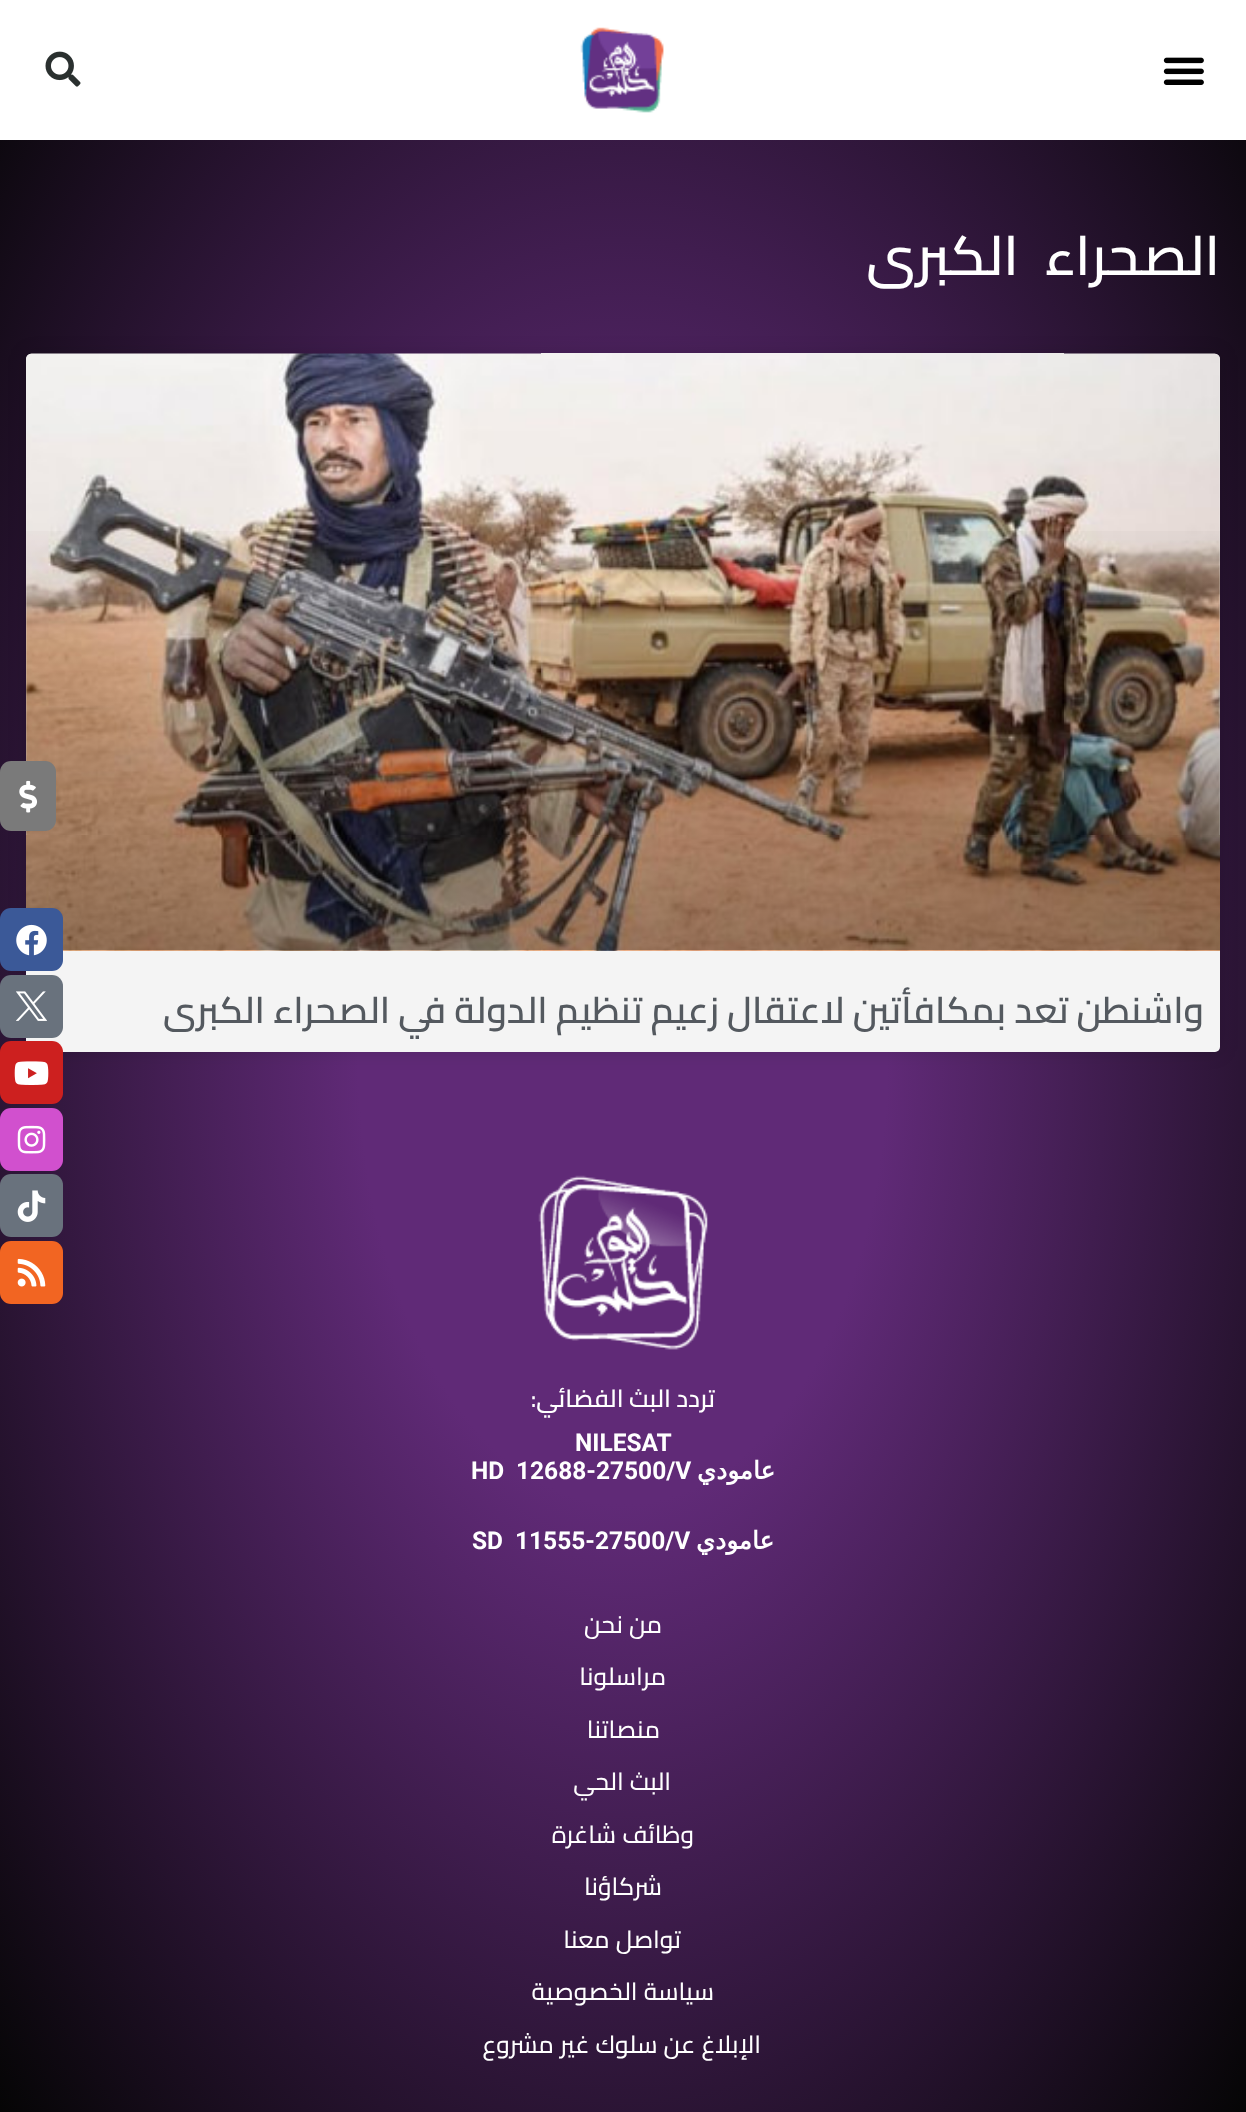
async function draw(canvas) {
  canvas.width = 1246;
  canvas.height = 2112;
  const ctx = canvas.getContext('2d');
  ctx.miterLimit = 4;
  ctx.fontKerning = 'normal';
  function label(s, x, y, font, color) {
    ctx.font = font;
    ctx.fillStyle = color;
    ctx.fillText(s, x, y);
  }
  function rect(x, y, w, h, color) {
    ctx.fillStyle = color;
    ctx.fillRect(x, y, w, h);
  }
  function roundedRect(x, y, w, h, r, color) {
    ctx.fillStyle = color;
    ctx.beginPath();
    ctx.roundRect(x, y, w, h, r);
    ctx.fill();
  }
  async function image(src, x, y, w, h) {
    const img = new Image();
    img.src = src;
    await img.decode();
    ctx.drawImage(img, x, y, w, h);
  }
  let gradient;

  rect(0, 0, 1246, 2112, '#fff');
  gradient = ctx.createRadialGradient(623, 622.71, 0, 623, 622.71, 881);
  gradient.addColorStop(0.3, '#602a77');
  gradient.addColorStop(1, '#050505');
  ctx.fillStyle = gradient;
  ctx.beginPath();
  ctx.rect(0, 140, 1246, 1972);
  ctx.save();
  ctx.clip();
  ctx.scale(1, 1494 / 881);
  ctx.fillRect(0, 0, 1246, 1246);
  ctx.restore();
  await image('assets/img1.png', 1163, 57, 41, 28);
  await image('assets/img2.png', 580, 27, 84, 86);
  await image('assets/img3.png', 45, 51, 36, 36);
  ctx.letterSpacing = '-1.1px';
  ctx.wordSpacing = '15px';
  ctx.direction = 'rtl';
  label('الصحراء الكبرى', 1220, 275, '600 55px Cairo', '#fff');
  ctx.fillStyle = '#00000026';
  ctx.filter = 'blur(9px)';
  ctx.beginPath();
  ctx.roundRect(26, 354, 1194, 698, 5);
  ctx.fill();
  ctx.filter = 'none';
  roundedRect(26, 354, 1194, 698, 5, '#f4f4f4');
  await image('assets/img4.png', 26, 353, 1194, 598);
  gradient = ctx.createLinearGradient(623, 950, 623, 354);
  gradient.addColorStop(0, '#00000059');
  gradient.addColorStop(0.75, '#00000000');
  ctx.fillStyle = gradient;
  ctx.fillRect(26, 531, 1194, 419);
  ctx.letterSpacing = '0px';
  ctx.wordSpacing = '0px';
  label('واشنطن تعد بمكافأتين لاعتقال زعيم تنظيم الدولة في الصحراء الكبرى', 1204, 1023, '600 36.75px Cairo', '#54595f');
  roundedRect(0, 761, 56, 70, 11, '#7a7a7a');
  await image('assets/img5.png', 19, 780, 19, 33);
  roundedRect(0, 908, 63, 63, 11, '#3b5998');
  await image('assets/img6.png', 16, 924, 31, 32);
  roundedRect(0, 975, 63, 63, 11, '#69727d');
  await image('assets/img7.png', 16, 991, 31, 30);
  roundedRect(0, 1041, 63, 63, 11, '#cd201f');
  await image('assets/img8.png', 14, 1061, 35, 24);
  roundedRect(0, 1108, 63, 63, 11, '#d150ce');
  await image('assets/img9.png', 17, 1125, 29, 29);
  roundedRect(0, 1174, 63, 63, 11, '#69727d');
  await image('assets/img10.png', 17, 1190, 29, 32);
  roundedRect(0, 1241, 63, 63, 11, '#f26522');
  await image('assets/img11.png', 17, 1258, 29, 29);
  await image('assets/img12.png', 538, 1175, 170, 175);
  label('تردد البث الفضائي:', 715, 1407, '600 24.5px Cairo', '#fff');
  ctx.direction = 'ltr';
  label('NILESAT', 575, 1451, 'bold 24.5px Roboto', '#fff');
  ctx.direction = 'rtl';
  label('عامودي', 775, 1479, 'bold 24.5px DejaVu Sans', '#fff');
  ctx.direction = 'ltr';
  label('12688-27500/V', 516, 1479, 'bold 24.5px Roboto', '#fff');
  label('HD', 471, 1479, 'bold 24.5px Roboto', '#fff');
  ctx.direction = 'rtl';
  label('عامودي', 774, 1549, 'bold 24.5px DejaVu Sans', '#fff');
  ctx.direction = 'ltr';
  label('11555-27500/V', 515, 1549, 'bold 24.5px Roboto', '#fff');
  label('SD', 472, 1549, 'bold 24.5px Roboto', '#fff');
  ctx.direction = 'rtl';
  label('من نحن', 662, 1633, '500 24.5px Cairo', '#fff');
  label('مراسلونا', 666, 1685, '500 24.5px Cairo', '#fff');
  label('منصاتنا', 660, 1738, '500 24.5px Cairo', '#fff');
  label('البث الحي', 671, 1790, '500 24.5px Cairo', '#fff');
  label('وظائف شاغرة', 694, 1843, '500 24.5px Cairo', '#fff');
  label('شركاؤنا', 662, 1895, '500 24.5px Cairo', '#fff');
  label('تواصل معنا', 681, 1948, '500 24.5px Cairo', '#fff');
  label('سياسة الخصوصية', 714, 2000, '500 24.5px Cairo', '#fff');
  label('الإبلاغ عن سلوك غير مشروع', 761, 2053, '500 24.5px Cairo', '#fff');
}

draw(document.querySelector('canvas'));
